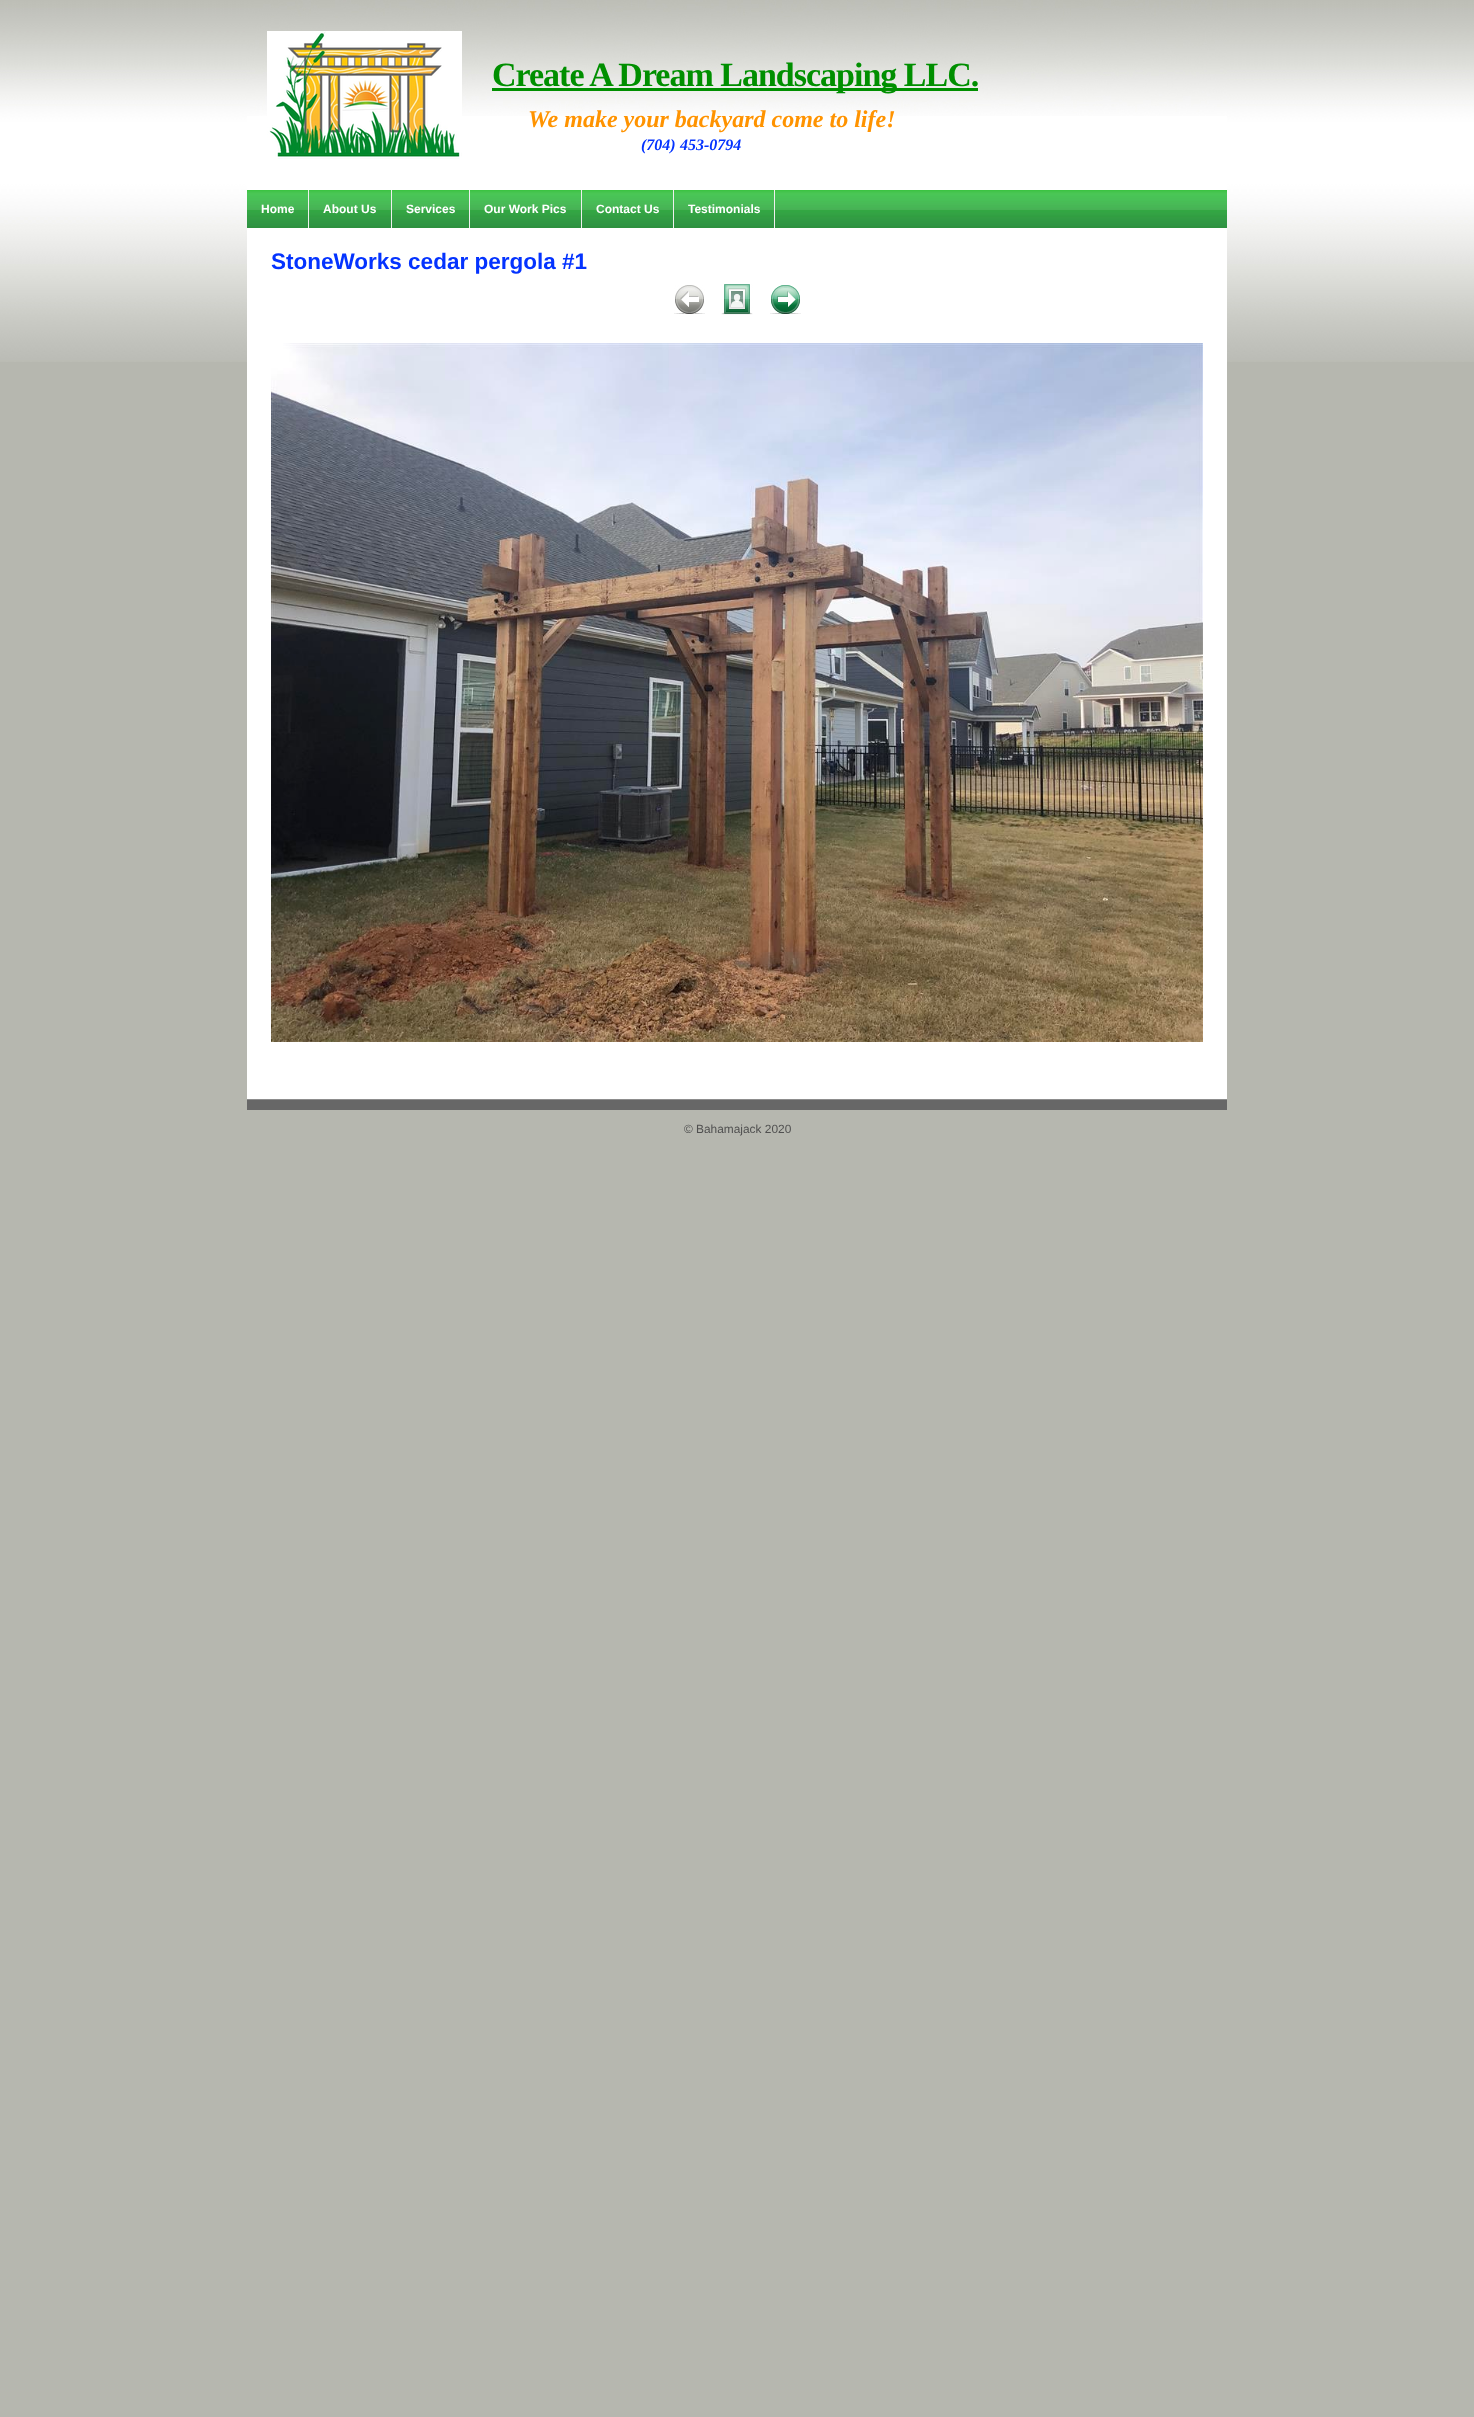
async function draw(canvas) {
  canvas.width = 1474;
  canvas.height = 2417;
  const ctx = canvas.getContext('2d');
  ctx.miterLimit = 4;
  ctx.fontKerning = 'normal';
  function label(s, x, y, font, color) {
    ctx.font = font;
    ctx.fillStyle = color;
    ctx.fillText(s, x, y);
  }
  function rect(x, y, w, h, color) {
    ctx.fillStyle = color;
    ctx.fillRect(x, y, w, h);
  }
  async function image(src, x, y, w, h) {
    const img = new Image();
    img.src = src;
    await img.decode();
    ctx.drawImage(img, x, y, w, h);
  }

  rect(0, 0, 1474, 2417, '#b6b7af');
  await image('assets/img1.png', 0, 0, 1474, 362);
  rect(247, 116, 980, 980, '#fff');
  await image('assets/img2.png', 247, 0, 980, 116);
  await image('assets/img3.png', 267, 31, 195, 128);
  rect(492, 88, 486, 3, '#008f00');
  ctx.letterSpacing = '-1px';
  label('Create A Dream Landscaping LLC.', 492, 86, 'bold 34px Liberation Serif', '#008f00');
  ctx.letterSpacing = '0px';
  label('We make your backyard come to life!', 528, 127, 'italic bold 24px Liberation Serif', '#ff9300');
  label('(704)', 641, 150, 'italic bold 16px Liberation Serif', '#0433ff');
  label('453-0794', 680, 150, 'italic bold 16px Liberation Serif', '#0433ff');
  await image('assets/img4.png', 247, 190, 980, 38);
  rect(308, 190, 1, 38, '#efefef');
  label('Home', 261, 213, 'bold 12px Liberation Sans', '#fff');
  rect(391, 190, 1, 38, '#efefef');
  label('About Us', 323, 213, 'bold 12px Liberation Sans', '#fff');
  rect(469, 190, 1, 38, '#efefef');
  label('Services', 406, 213, 'bold 12px Liberation Sans', '#fff');
  rect(581, 190, 1, 38, '#efefef');
  label('Our Work Pics', 484, 213, 'bold 12px Liberation Sans', '#fff');
  rect(673, 190, 1, 38, '#efefef');
  label('Contact Us', 596, 213, 'bold 12px Liberation Sans', '#fff');
  rect(774, 190, 1, 38, '#efefef');
  label('Testimonials', 688, 213, 'bold 12px Liberation Sans', '#fff');
  label('StoneWorks cedar pergola #1', 271, 269, 'bold 22.5px Liberation Sans', '#0433ff');
  await image('assets/img5.png', 674, 285, 31, 29);
  await image('assets/img6.png', 721, 284, 32, 31);
  await image('assets/img7.png', 724, 284, 26, 30);
  await image('assets/img8.png', 770, 285, 31, 29);
  await image('assets/img9.png', 771, 285, 29, 29);
  await image('assets/img10.png', 271, 343, 932, 699);
  await image('assets/img11.png', 247, 1096, 980, 14);
  label('© Bahamajack 2020', 684, 1133, '11.9px Liberation Sans', '#505050');
}

draw(document.querySelector('canvas'));
